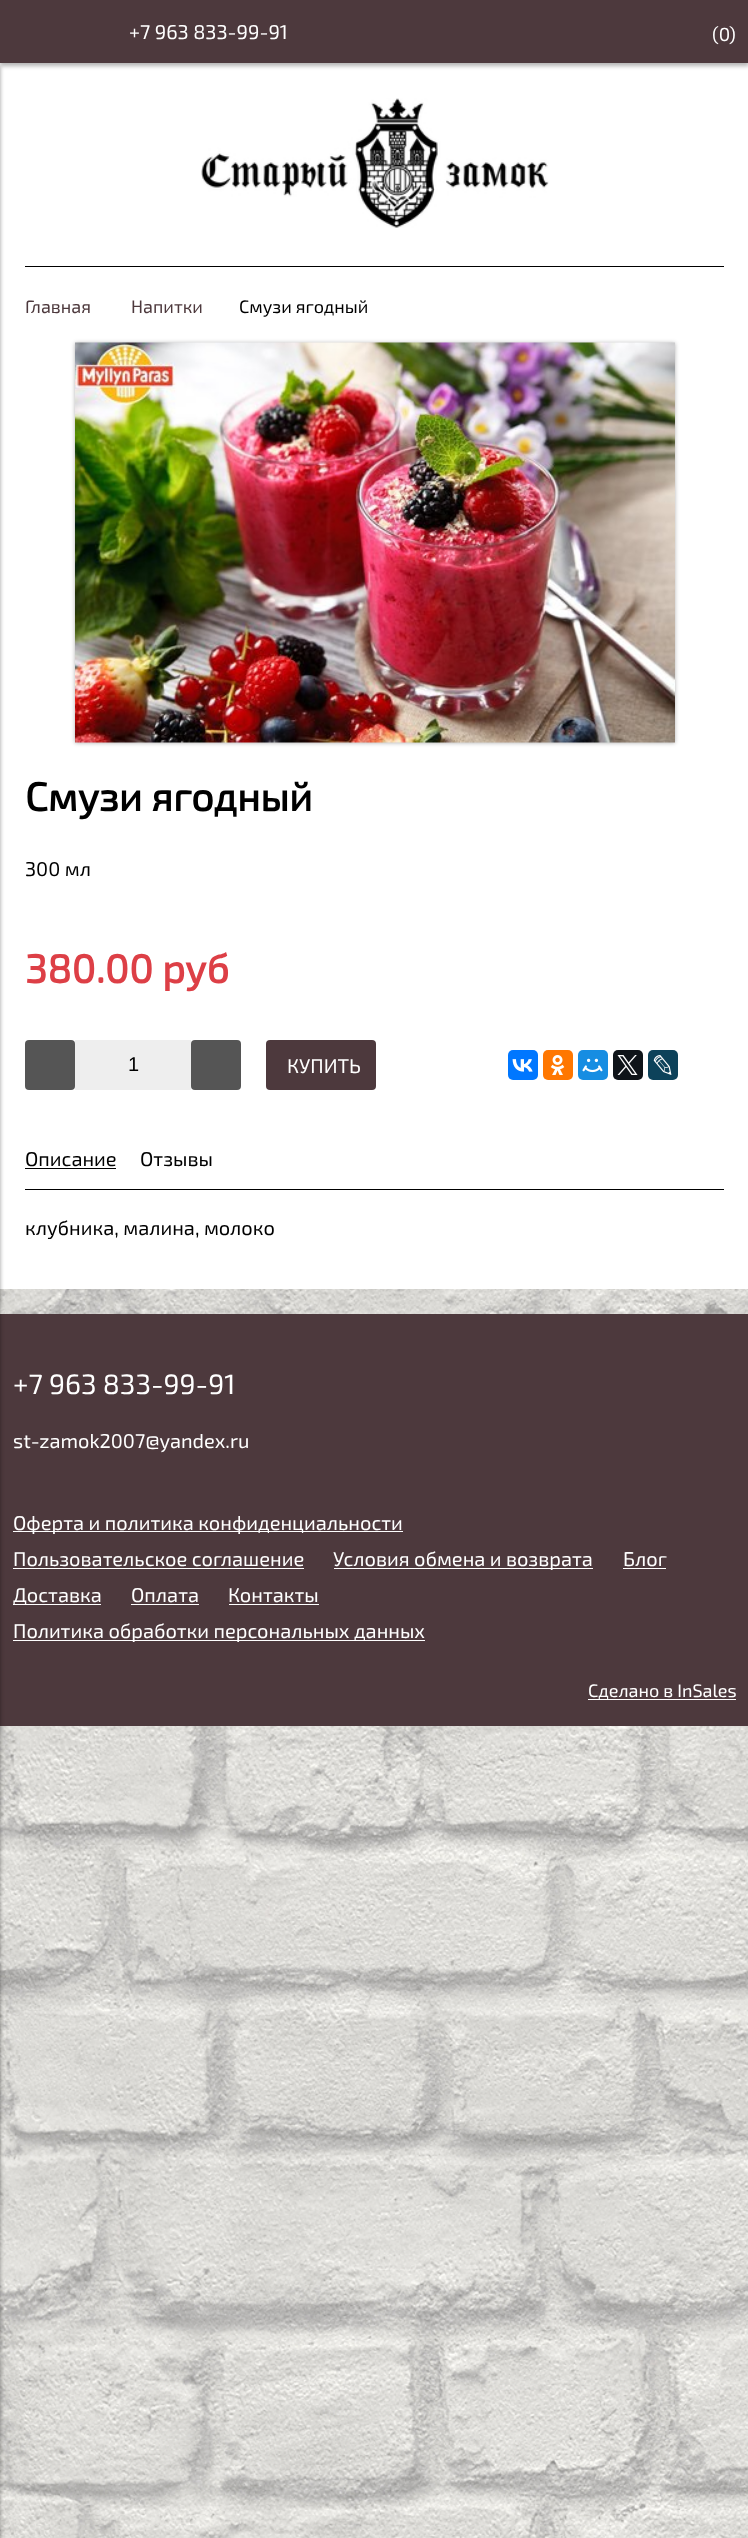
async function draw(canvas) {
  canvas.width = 748;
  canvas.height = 2538;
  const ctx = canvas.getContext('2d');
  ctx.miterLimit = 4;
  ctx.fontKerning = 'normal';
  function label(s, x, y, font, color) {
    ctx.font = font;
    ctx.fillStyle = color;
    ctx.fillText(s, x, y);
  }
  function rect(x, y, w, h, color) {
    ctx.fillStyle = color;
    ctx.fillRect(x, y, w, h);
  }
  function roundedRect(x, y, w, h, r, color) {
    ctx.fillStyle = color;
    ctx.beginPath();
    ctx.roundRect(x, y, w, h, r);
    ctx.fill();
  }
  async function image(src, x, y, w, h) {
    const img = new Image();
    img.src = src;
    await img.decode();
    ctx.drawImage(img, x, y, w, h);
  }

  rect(0, 0, 748, 2538, '#fff');
  ctx.fillStyle = '#0000004d';
  ctx.filter = 'blur(2px)';
  ctx.beginPath();
  ctx.rect(0, 4, 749, 62);
  ctx.fill();
  ctx.filter = 'none';
  rect(0, 0, 748, 63, '#4d393d');
  label('+7 963 833-99-91', 129, 39, '20px "Exo 2"', '#fff');
  label('(0', 712, 41, '19px "Exo 2"', '#fff');
  label(')', 729, 41, '19px "Exo 2"', '#fff');
  await image('assets/img8.png', 0, 1289, 748, 1249);
  rect(0, 1314, 748, 412, '#4d393d');
  ctx.fillStyle = '#00000066';
  ctx.filter = 'blur(2px)';
  ctx.beginPath();
  ctx.rect(-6, 66, 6, 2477);
  ctx.fill();
  ctx.filter = 'none';
  await image('assets/img1.png', 201, 98, 348, 130);
  rect(25, 266, 699, 1, '#000');
  label('Главная', 25, 313, '18px "Exo 2"', '#4d393d');
  label('Напитки', 131, 313, '18px "Exo 2"', '#4d393d');
  label('Смузи ягодный', 239, 313, '18px "Exo 2"', '#000');
  ctx.fillStyle = '#0000004d';
  ctx.filter = 'blur(2px)';
  ctx.beginPath();
  ctx.rect(75, 343, 600, 400);
  ctx.fill();
  ctx.filter = 'none';
  await image('assets/img2.png', 75, 342, 600, 401);
  label('Смузи ягодный', 25, 811, 'bold 40px "Exo 2"', '#000');
  label('300 мл', 25, 876, '20px "Exo 2"', '#000');
  label('380.00 руб', 25, 983, 'bold 40px "Exo 2"', '#dd3f46');
  roundedRect(25, 1040, 50, 50, 4, '#555');
  rect(75, 1040, 116, 50, '#eee');
  label('1', 128, 1071, '20px Liberation Sans', '#000');
  roundedRect(191, 1040, 50, 50, 4, '#555');
  roundedRect(266, 1040, 110, 50, 4, '#4d393d');
  label('КУПИТЬ', 287, 1073, '20px "Exo 2"', '#fff');
  roundedRect(508, 1050, 30, 30, 5, '#07f');
  await image('assets/img3.png', 512, 1059, 21, 13);
  roundedRect(543, 1050, 30, 30, 5, '#f70');
  await image('assets/img4.png', 550, 1055, 15, 20);
  roundedRect(578, 1050, 30, 30, 5, '#168de2');
  await image('assets/img5.png', 582, 1058, 21, 15);
  roundedRect(613, 1050, 30, 30, 5, '#0f1419');
  await image('assets/img6.png', 617, 1055, 21, 20);
  roundedRect(648, 1050, 30, 30, 5, '#0d425a');
  await image('assets/img7.png', 653, 1055, 19, 20);
  rect(25, 1189, 699, 1, '#000');
  label('Описание', 25, 1166, '20px "Exo 2"', '#000');
  rect(25, 1168, 91, 1, '#000');
  label('Отзывы', 140, 1166, '20px "Exo 2"', '#000');
  label('клубника, малина, молоко', 25, 1235, '20px "Exo 2"', '#000');
  label('+7 963 833-99-91', 13, 1394, '28px "Exo 2"', '#fff');
  label('st-zamok2007@yandex.ru', 13, 1448, '20px "Exo 2"', '#fff');
  rect(13, 1531, 390, 1, '#fff');
  label('Оферта и политика конфиденциальности', 13, 1530, '20px "Exo 2"', '#fff');
  label('Пользовательское соглашение', 13, 1566, '20px "Exo 2"', '#fff');
  rect(13, 1568, 291, 1, '#fff');
  rect(334, 1568, 259, 1, '#fff');
  label('Условия обмена и возврата', 333, 1566, '20px "Exo 2"', '#fff');
  label('Блог', 623, 1566, '20px "Exo 2"', '#fff');
  rect(623, 1568, 43, 1, '#fff');
  rect(13, 1604, 88, 1, '#fff');
  label('Доставка', 13, 1602, '20px "Exo 2"', '#fff');
  label('Оплата', 131, 1602, '20px "Exo 2"', '#fff');
  rect(131, 1604, 68, 1, '#fff');
  label('Контакты', 228, 1602, '20px "Exo 2"', '#fff');
  rect(229, 1604, 90, 1, '#fff');
  rect(13, 1640, 412, 1, '#fff');
  label('Политика обработки персональных данных', 13, 1638, '20px "Exo 2"', '#fff');
  rect(588, 1699, 148, 1, '#fff');
  label('Сделано в InSales', 588, 1697, '18px "Exo 2"', '#fff');
}

draw(document.querySelector('canvas'));
